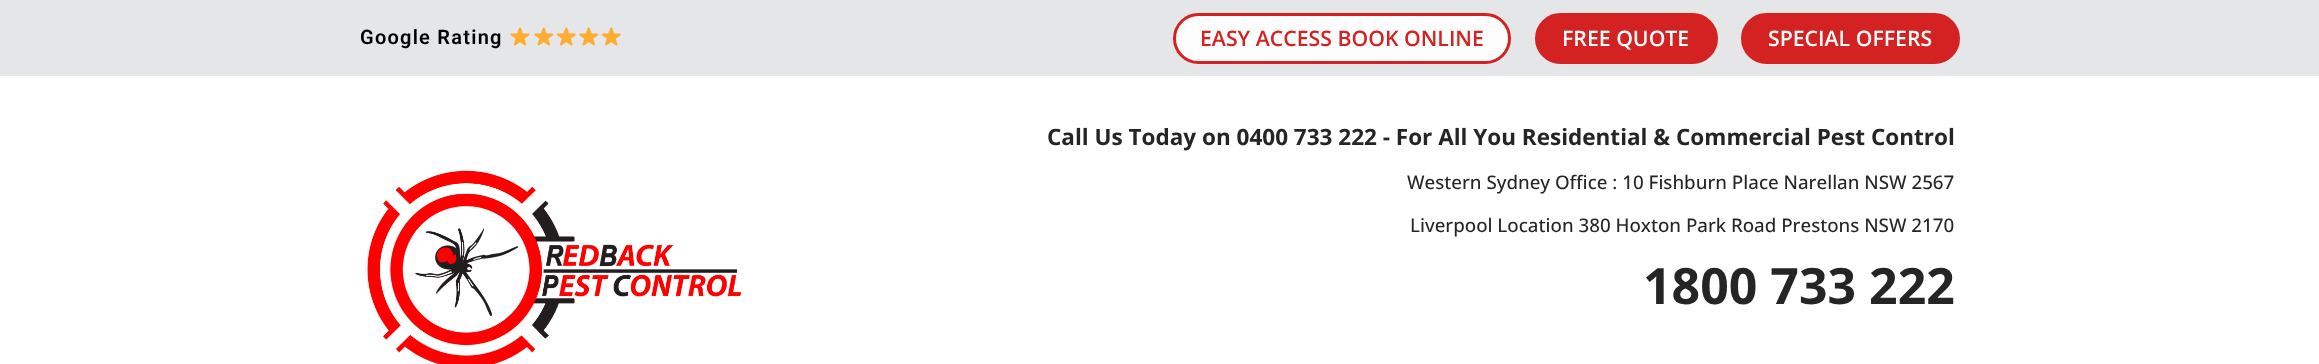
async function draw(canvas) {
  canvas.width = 2319;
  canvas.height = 364;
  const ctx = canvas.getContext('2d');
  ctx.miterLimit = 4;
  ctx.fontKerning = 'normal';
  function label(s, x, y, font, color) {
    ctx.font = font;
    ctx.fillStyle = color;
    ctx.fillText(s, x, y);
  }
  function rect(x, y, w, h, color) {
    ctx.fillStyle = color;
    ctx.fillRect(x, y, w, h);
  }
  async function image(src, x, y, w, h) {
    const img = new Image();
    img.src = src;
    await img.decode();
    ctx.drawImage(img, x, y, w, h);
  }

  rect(0, 0, 2319, 364, '#fff');
  rect(0, 0, 2319, 76, '#e4e6e8');
  ctx.letterSpacing = '1.25px';
  label('Google Rating', 360, 44, '600 20px Roboto', '#000');
  await image('assets/img1.png', 510, 27, 20, 19);
  await image('assets/img2.png', 534, 27, 20, 19);
  await image('assets/img3.png', 556, 27, 20, 19);
  await image('assets/img2.png', 579, 27, 20, 19);
  await image('assets/img3.png', 601, 27, 20, 19);
  ctx.fillStyle = '#fdfdfd';
  ctx.beginPath();
  ctx.roundRect(1174.5, 14.5, 335, 48, 24);
  ctx.fill();
  ctx.strokeStyle = '#d42121';
  ctx.lineWidth = 3;
  ctx.stroke();
  ctx.letterSpacing = '0px';
  label('EASY ACCESS BOOK ONLINE', 1200, 46, '600 21.25px Open Sans', '#d42121');
  ctx.beginPath();
  ctx.roundRect(1536.5, 14.5, 180, 48, 24);
  ctx.fill();
  ctx.stroke();
  label('FREE QUOTE', 1562, 46, '600 21.25px Open Sans', '#fff');
  ctx.fillStyle = '#d42121';
  ctx.beginPath();
  ctx.roundRect(1742.5, 14.5, 216, 48, 24);
  ctx.fill();
  ctx.stroke();
  label('SPECIAL OFFERS', 1768, 46, '600 21.25px Open Sans', '#fff');
  await image('assets/img4.png', 367, 170, 374, 194);
  label('Call Us Today on 0400 733 222 - For All You Residential & Commercial Pest Control', 1047, 145, 'bold 22.5px Open Sans', '#252525');
  label('Western Sydney Office : 10 Fishburn Place Narellan NSW 2567', 1407, 189, '500 18.75px Open Sans', '#252525');
  label('Liverpool Location 380 Hoxton Park Road Prestons NSW 2170', 1410, 232, '500 18.75px Open Sans', '#252525');
  label('1800 733 222', 1643, 304, 'bold 50px Open Sans', '#252525');
}

draw(document.querySelector('canvas'));
